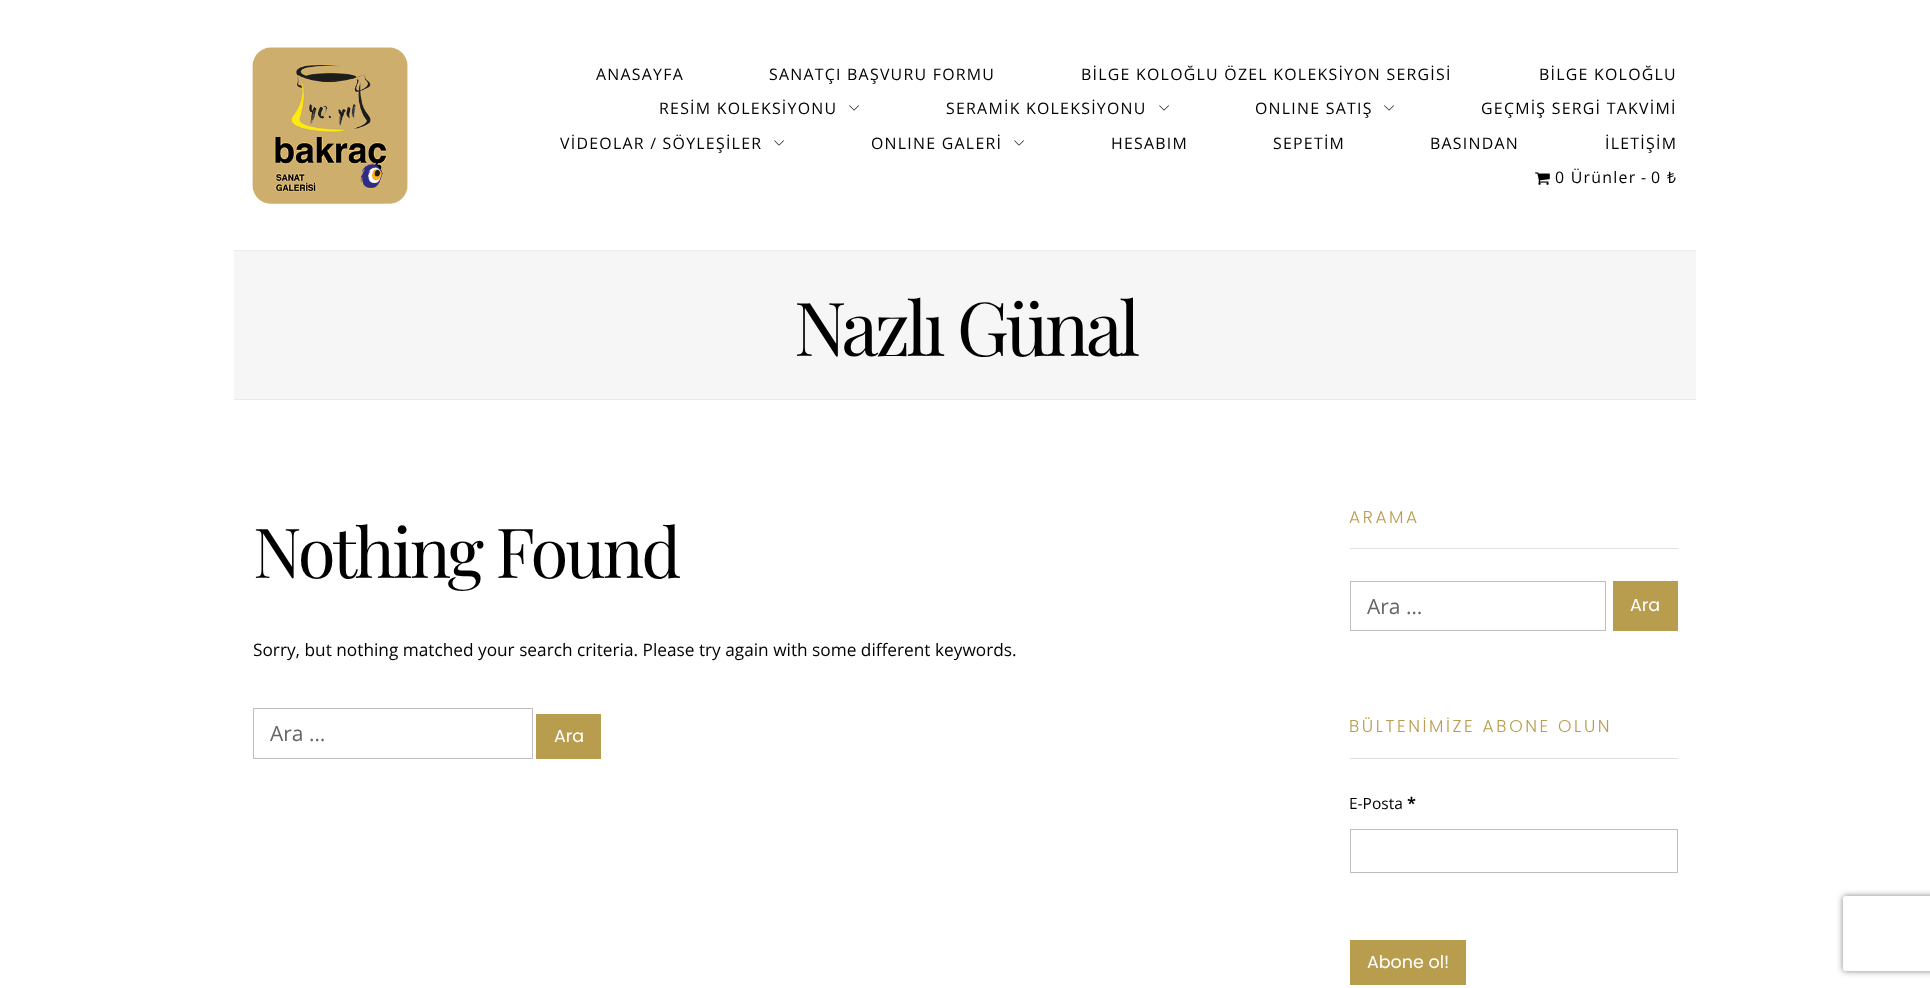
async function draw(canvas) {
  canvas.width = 1930;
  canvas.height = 988;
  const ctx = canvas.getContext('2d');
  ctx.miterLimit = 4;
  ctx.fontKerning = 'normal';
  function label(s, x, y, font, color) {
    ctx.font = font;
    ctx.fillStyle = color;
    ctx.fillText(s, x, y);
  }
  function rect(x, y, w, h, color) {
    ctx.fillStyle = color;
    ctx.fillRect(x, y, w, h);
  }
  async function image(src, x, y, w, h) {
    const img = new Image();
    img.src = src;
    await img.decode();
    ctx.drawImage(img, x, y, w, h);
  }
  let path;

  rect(0, 0, 1930, 988, '#fff');
  await image('assets/img1.png', 252, 47, 156, 157);
  ctx.letterSpacing = '1.25px';
  label('ANASAYFA', 596, 80, '15.9px Open Sans', '#000');
  label('SANATÇI BAŞVURU FORMU', 769, 80, '15.9px Open Sans', '#000');
  label('BİLGE KOLOĞLU ÖZEL KOLEKSİYON SERGİSİ', 1081, 80, '15.9px Open Sans', '#000');
  label('BİLGE KOLOĞLU', 1539, 80, '15.9px Open Sans', '#000');
  label('RESİM KOLEKSİYONU', 659, 114, '15.9px Open Sans', '#000');
  await image('assets/img2.png', 849, 105, 10, 6);
  label('SERAMİK KOLEKSİYONU', 946, 114, '15.9px Open Sans', '#000');
  await image('assets/img2.png', 1159, 105, 10, 6);
  label('ONLINE SATIŞ', 1255, 114, '15.9px Open Sans', '#000');
  await image('assets/img2.png', 1384, 105, 10, 6);
  label('GEÇMİŞ SERGİ TAKVİMİ', 1481, 114, '15.9px Open Sans', '#000');
  label('VİDEOLAR / SÖYLEŞİLER', 560, 149, '15.9px Open Sans', '#000');
  await image('assets/img2.png', 774, 140, 10, 6);
  label('ONLINE GALERİ', 871, 149, '15.9px Open Sans', '#000');
  await image('assets/img2.png', 1014, 140, 10, 6);
  label('HESABIM', 1111, 149, '15.9px Open Sans', '#000');
  label('SEPETİM', 1273, 149, '15.9px Open Sans', '#000');
  label('BASINDAN', 1430, 149, '15.9px Open Sans', '#000');
  label('İLETİŞİM', 1605, 149, '15.9px Open Sans', '#000');
  await image('assets/img3.png', 1535, 172, 15, 13);
  label('0 Ürünler', 1555, 183, '15.9px Open Sans', '#000');
  label('-', 1641, 183, '15.9px Open Sans', '#000');
  label('0', 1651, 183, '15.9px Open Sans', '#000');
  label('₺', 1667, 183, '15.9px Noto Sans', '#000');
  rect(234, 250, 1462, 1, '#ececec');
  rect(234, 251, 1462, 148, '#f6f6f6');
  ctx.letterSpacing = '-3.75px';
  label('Nazlı Günal', 794, 356, '74.5px Playfair Display', '#000');
  rect(234, 399, 1462, 1, '#eaeaea');
  ctx.letterSpacing = '-2.75px';
  label('Nothing Found', 253, 578, '69px Playfair Display', '#000');
  ctx.letterSpacing = '0px';
  label('Sorry, but nothing matched your search criteria. Please try again with some different keywords.', 253, 656, '17.25px Open Sans', '#000');
  ctx.strokeStyle = '#bfbfbf';
  ctx.strokeRect(253.5, 708.5, 279, 50);
  label('Ara …', 270, 741, '21px Open Sans', '#666');
  rect(536, 714, 65, 45, '#b89d4f');
  label('Ara', 554, 742, '17.5px Poppins', '#fff');
  ctx.letterSpacing = '2.6px';
  label('ARAMA', 1349, 523, '300 17.1px Poppins', '#b89d4f');
  rect(1350, 548, 328, 1, '#dfdfdf');
  ctx.strokeRect(1350.5, 581.5, 255, 49);
  ctx.letterSpacing = '0px';
  label('Ara …', 1367, 614, '21px Open Sans', '#666');
  rect(1613, 581, 65, 50, '#b89d4f');
  label('Ara', 1630, 611, '17.5px Poppins', '#fff');
  ctx.letterSpacing = '2.6px';
  label('BÜLTENİMİZE ABONE OLUN', 1349, 732, '300 17.1px Poppins', '#b89d4f');
  rect(1350, 758, 328, 1, '#dfdfdf');
  ctx.letterSpacing = '0px';
  label('E-Posta', 1349, 809, '15.5px Open Sans', '#000');
  label('*', 1407, 809, 'bold 15.5px Open Sans', '#000');
  ctx.strokeRect(1350.5, 829.5, 327, 43);
  rect(1350, 940, 116, 45, '#b89d4f');
  label('Abone ol!', 1367, 968, '17.5px Poppins', '#fff');
  ctx.save();
  path = new Path2D('M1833 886H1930V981H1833ZM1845.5 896H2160.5C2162 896 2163 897 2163 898.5V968.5C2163 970 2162 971 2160.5 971H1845.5C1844 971 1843 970 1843 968.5V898.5C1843 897 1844 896 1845.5 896Z');
  ctx.clip(path, 'evenodd');
  ctx.fillStyle = '#808080';
  ctx.filter = 'blur(3px)';
  ctx.beginPath();
  ctx.roundRect(1843, 896, 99, 75, 2.5);
  ctx.fill();
  ctx.filter = 'none';
  ctx.restore();
}

draw(document.querySelector('canvas'));
